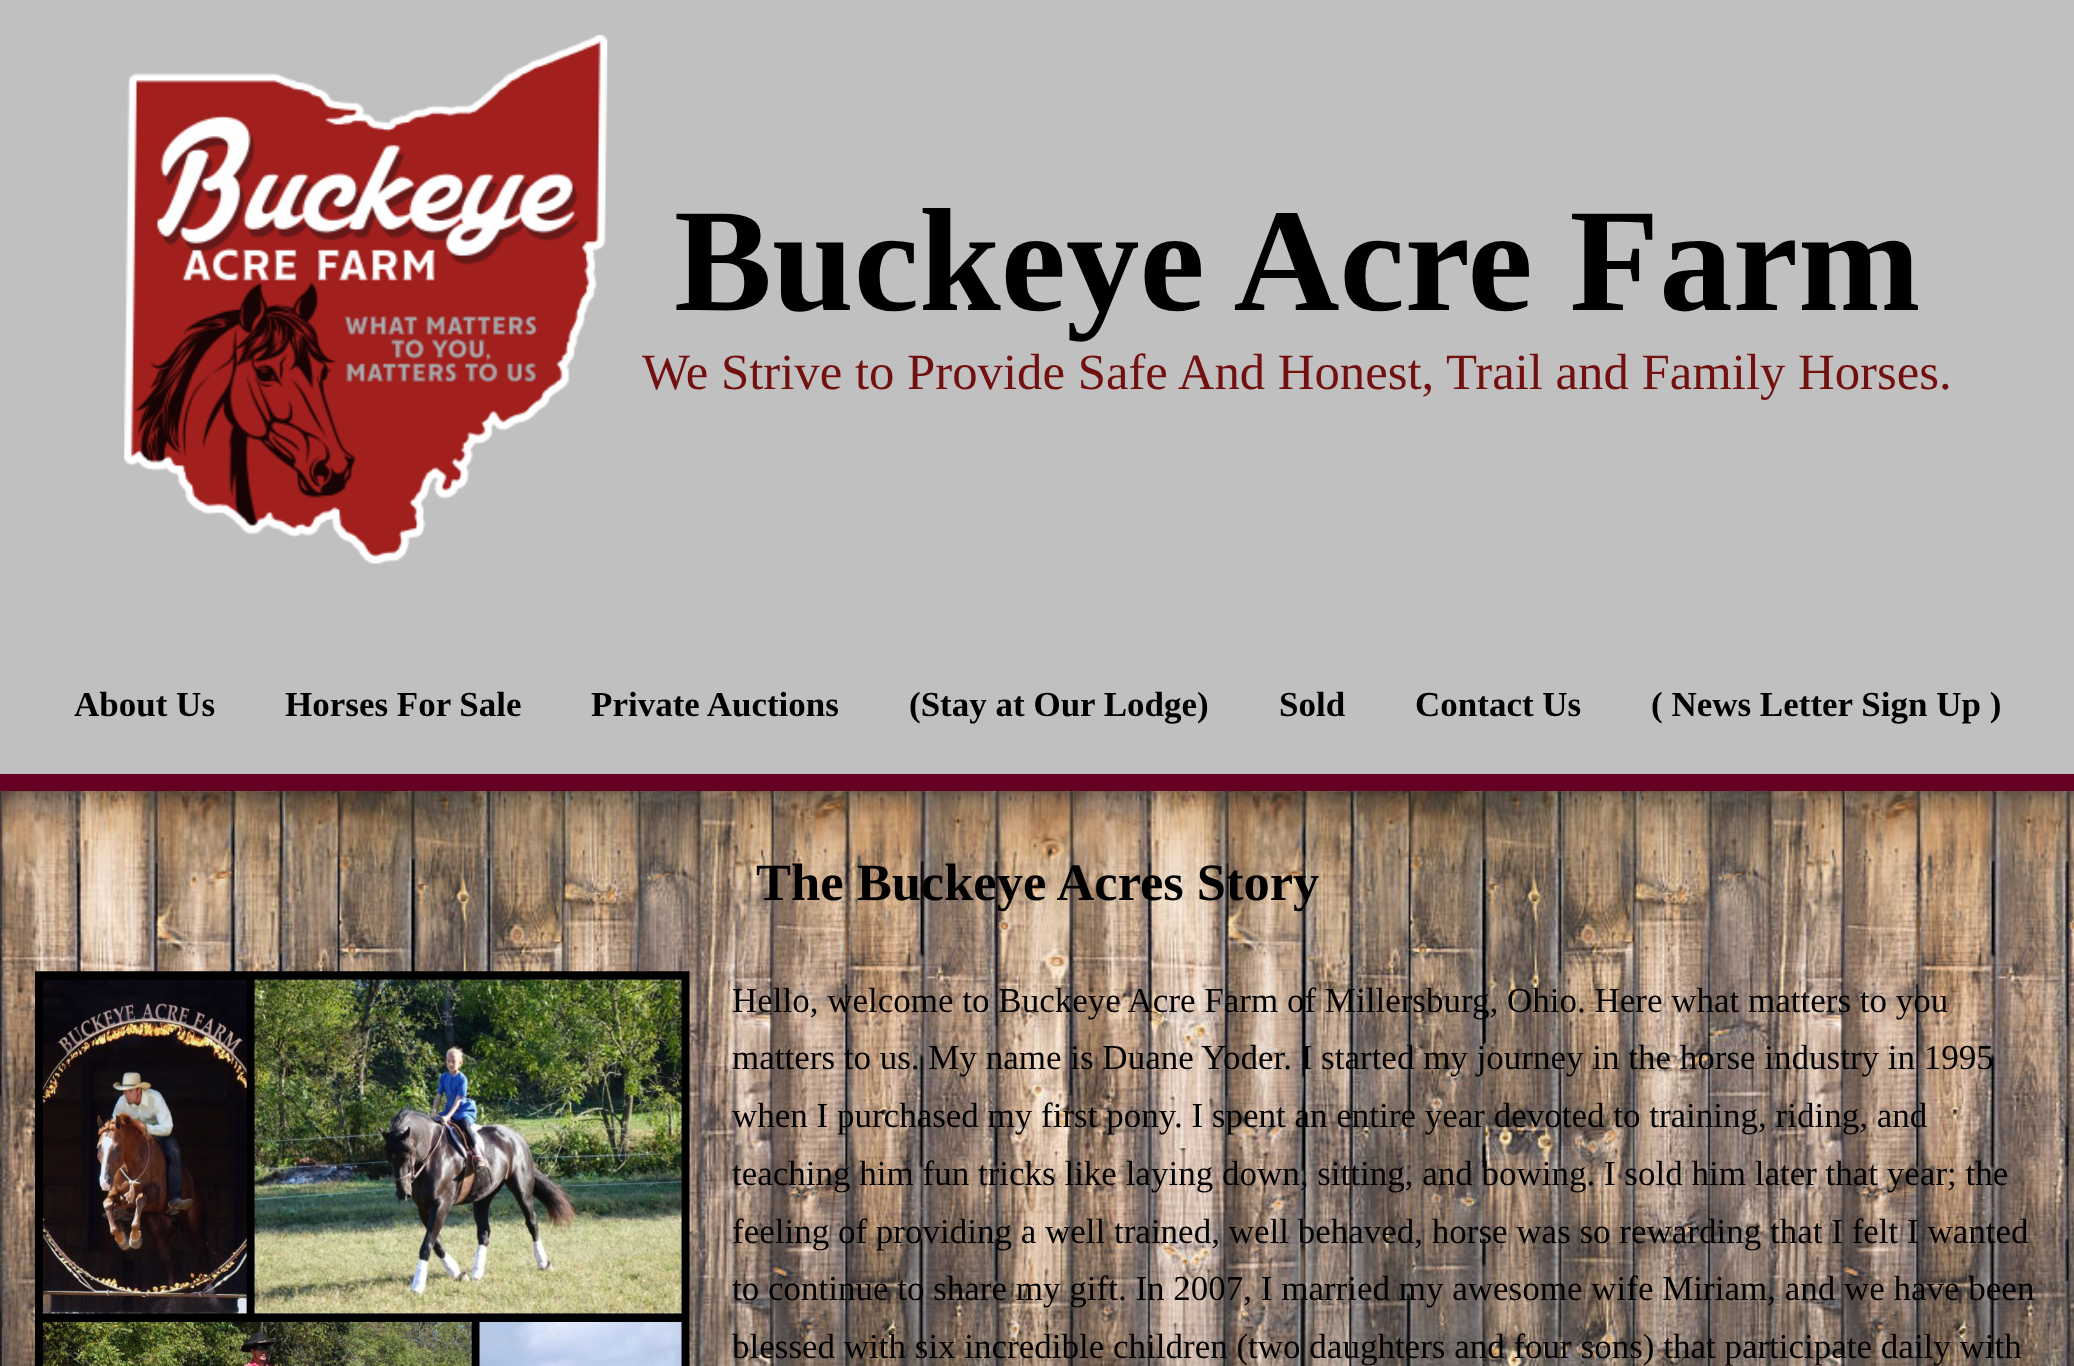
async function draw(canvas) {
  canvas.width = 2074;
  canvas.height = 1366;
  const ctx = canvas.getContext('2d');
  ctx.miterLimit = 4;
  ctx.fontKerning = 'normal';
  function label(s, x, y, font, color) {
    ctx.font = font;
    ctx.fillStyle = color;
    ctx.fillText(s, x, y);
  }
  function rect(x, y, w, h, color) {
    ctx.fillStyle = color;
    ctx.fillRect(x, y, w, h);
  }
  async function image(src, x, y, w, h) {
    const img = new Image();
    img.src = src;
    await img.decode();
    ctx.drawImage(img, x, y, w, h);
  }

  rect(0, 0, 2074, 1366, '#fff');
  rect(0, 0, 2074, 774, '#c0c0c0');
  rect(0, 774, 2074, 17, '#602');
  await image('assets/img1.png', 124, 35, 484, 529);
  label('Buckeye Acre Farm', 674, 310, 'bold 147px Liberation Serif', '#000');
  label('We Strive to Provide Safe And Honest, Trail and Family Horses.', 642, 389, '50.75px Liberation Serif', '#71100e');
  label('About Us', 74, 716, 'bold 35px Liberation Serif', '#000');
  label('Horses For Sale', 285, 716, 'bold 35px Liberation Serif', '#000');
  label('Private Auctions', 591, 716, 'bold 35px Liberation Serif', '#000');
  label('(Stay at Our Lodge)', 909, 716, 'bold 35px Liberation Serif', '#000');
  label('Sold', 1279, 716, 'bold 35px Liberation Serif', '#000');
  label('Contact Us', 1415, 716, 'bold 35px Liberation Serif', '#000');
  label('( News Letter Sign Up )', 1651, 716, 'bold 35px Liberation Serif', '#000');
  await image('assets/img2.png', 0, 791, 2074, 575);
  label('The Buckeye Acres Story', 756, 900, 'bold 52.5px Liberation Serif', '#000');
  await image('assets/img3.png', 35, 971, 655, 395);
  label('Hello, welcome to Buckeye Acre Farm of Millersburg, Ohio. Here what matters to you', 732, 1012, '35px Liberation Serif', '#000');
  label('matters to us. My name is Duane Yoder. I started my journey in the horse industry in 1995', 732, 1069, '35px Liberation Serif', '#000');
  label('when I purchased my first pony. I spent an entire year devoted to training, riding, and', 732, 1127, '35px Liberation Serif', '#000');
  label('teaching him fun tricks like laying down, sitting, and bowing. I sold him later that year; the', 732, 1185, '35px Liberation Serif', '#000');
  label('feeling of providing a well trained, well behaved, horse was so rewarding that I felt I wanted', 732, 1243, '35px Liberation Serif', '#000');
  label('to continue to share my gift. In 2007, I married my awesome wife Miriam, and we have been', 732, 1300, '35px Liberation Serif', '#000');
  label('blessed with six incredible children (two daughters and four sons) that participate daily with', 732, 1358, '35px Liberation Serif', '#000');
}

draw(document.querySelector('canvas'));
